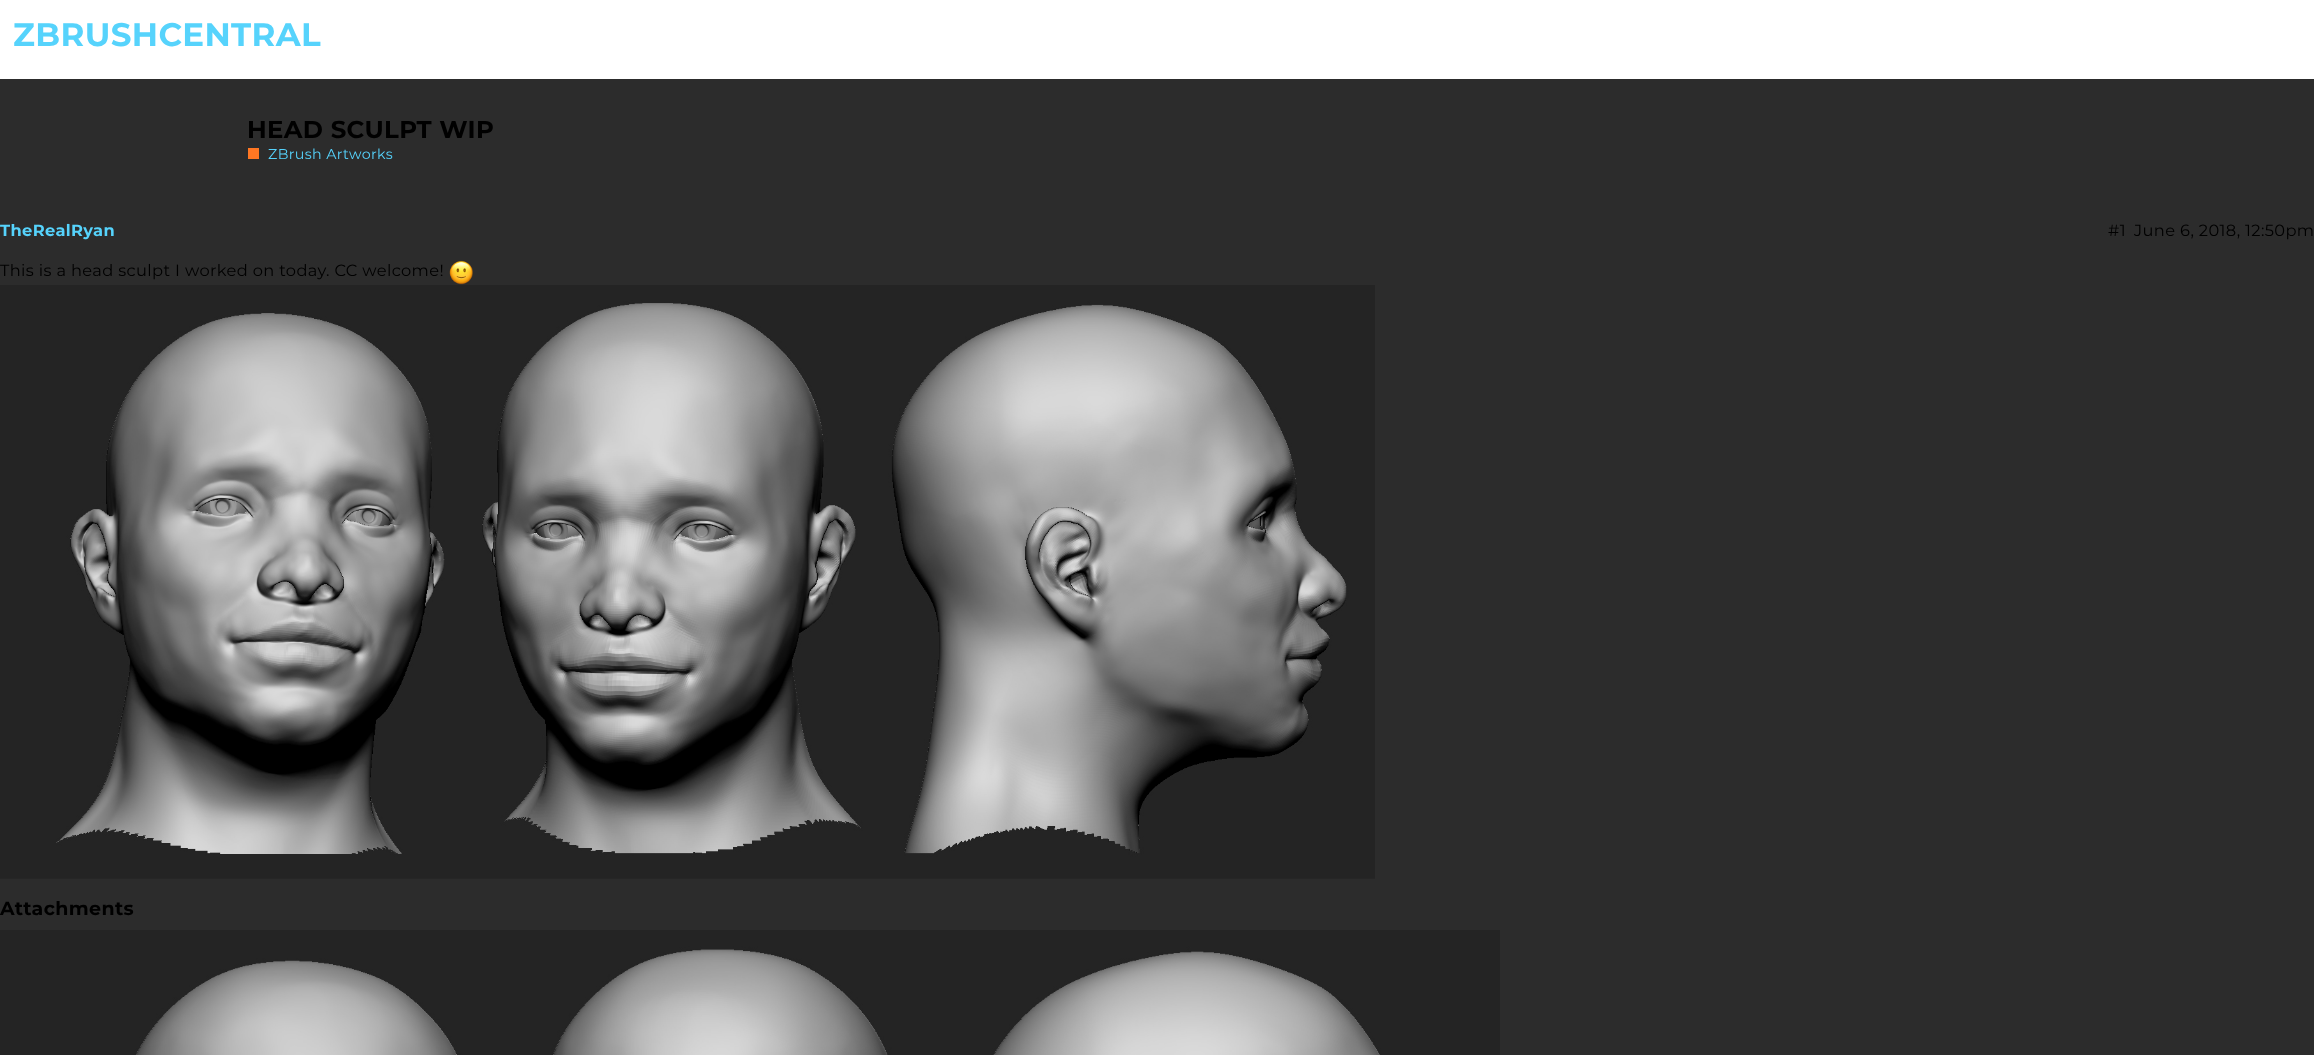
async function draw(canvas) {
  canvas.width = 2314;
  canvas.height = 1055;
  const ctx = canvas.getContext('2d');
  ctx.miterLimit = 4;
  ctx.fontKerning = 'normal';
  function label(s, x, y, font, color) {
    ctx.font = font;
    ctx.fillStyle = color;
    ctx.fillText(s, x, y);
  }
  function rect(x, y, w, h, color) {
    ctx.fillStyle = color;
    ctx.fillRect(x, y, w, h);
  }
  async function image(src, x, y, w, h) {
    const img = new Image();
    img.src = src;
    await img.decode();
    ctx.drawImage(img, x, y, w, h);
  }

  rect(0, 0, 2314, 1055, '#2c2c2c');
  rect(0, 0, 2314, 79, '#fff');
  ctx.letterSpacing = '0.37px';
  label('ZBRUSHCENTRAL', 13, 46, 'bold 32.5px Montserrat', '#56d3fc');
  label('HEAD SCULPT WIP', 247, 138, 'bold 24.4px Montserrat', '#000');
  rect(248, 148, 11, 11, '#ff7723');
  label('ZBrush Artworks', 268, 159, '14.25px Montserrat', '#56d3fc');
  label('TheRealRyan', 0, 236, 'bold 16.25px Montserrat', '#56d3fc');
  label('#1', 2108, 236, '16.25px Montserrat', '#000');
  label('June 6, 2018, 12:50pm', 2134, 236, '16.25px Montserrat', '#000');
  label('This is a head sculpt I worked on today. CC welcome!', 0, 276, '16.25px Montserrat', '#000');
  await image('assets/img1.png', 449, 260, 24, 25);
  await image('assets/img2.png', 0, 285, 1375, 594);
  label('Attachments', 0, 915, 'bold 19px Montserrat', '#000');
  await image('assets/img3.png', 0, 930, 1500, 125);
}

draw(document.querySelector('canvas'));
